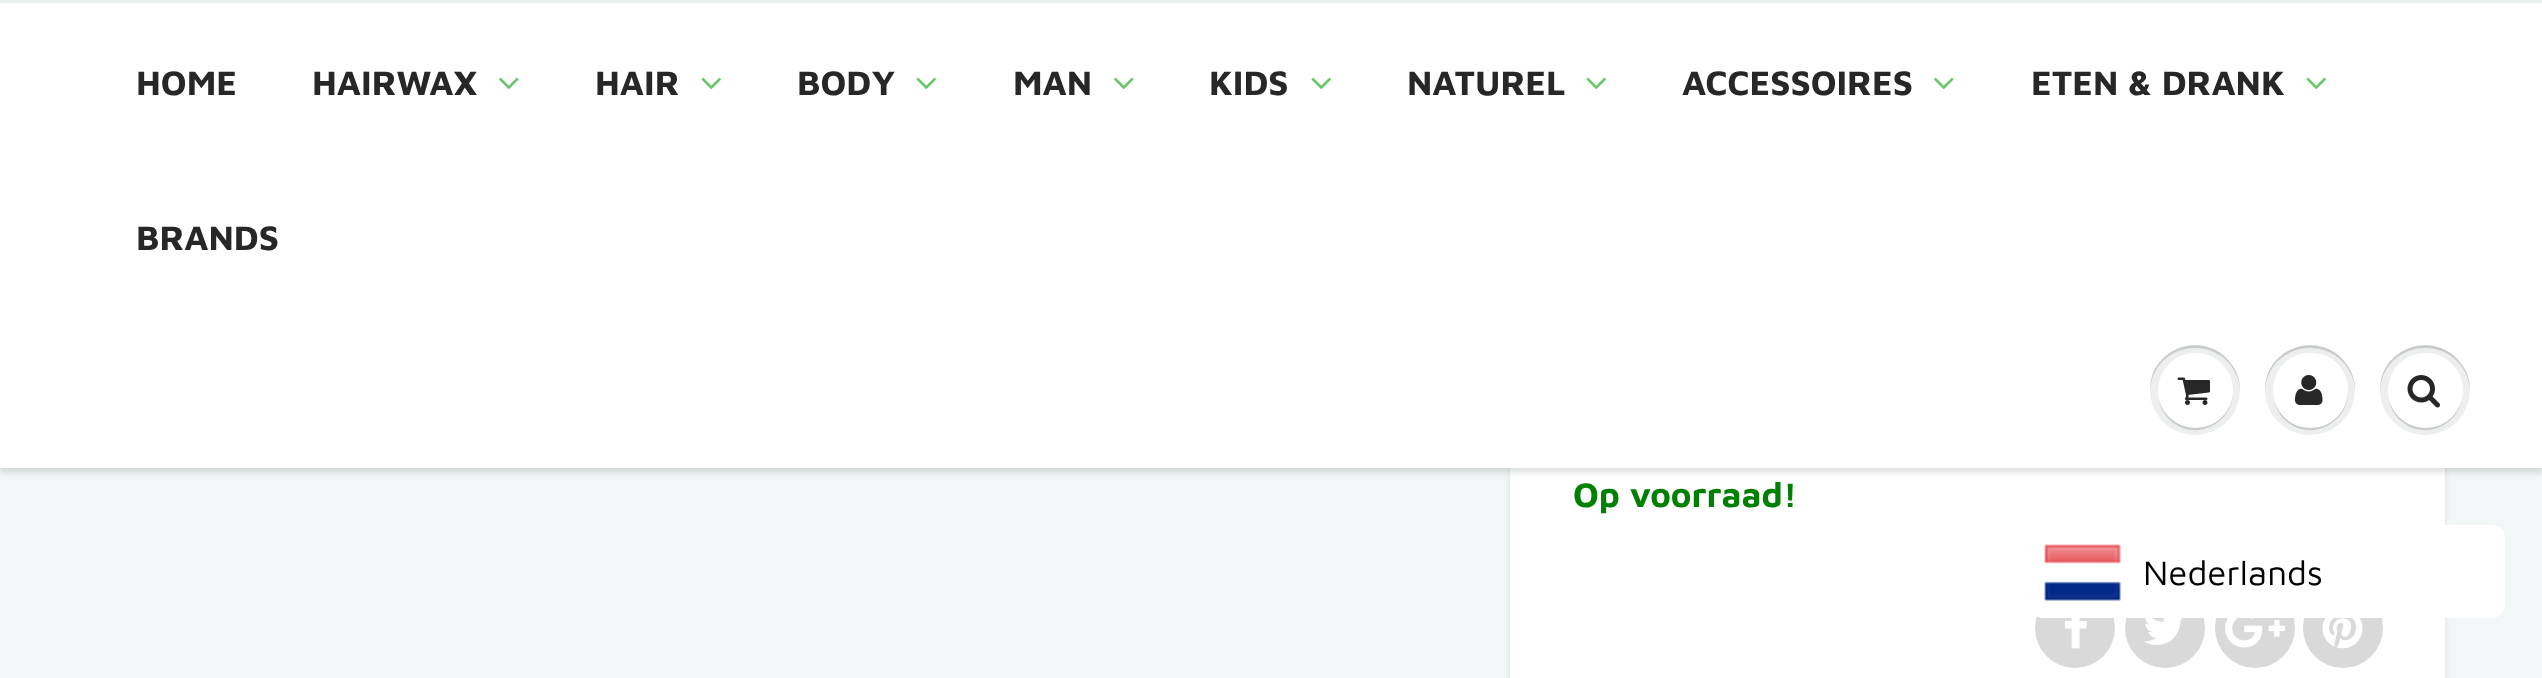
async function draw(canvas) {
  canvas.width = 2542;
  canvas.height = 678;
  const ctx = canvas.getContext('2d');
  ctx.miterLimit = 4;
  ctx.fontKerning = 'normal';
  function label(s, x, y, font, color) {
    ctx.font = font;
    ctx.fillStyle = color;
    ctx.fillText(s, x, y);
  }
  function rect(x, y, w, h, color) {
    ctx.fillStyle = color;
    ctx.fillRect(x, y, w, h);
  }
  function roundedRect(x, y, w, h, r, color) {
    ctx.fillStyle = color;
    ctx.beginPath();
    ctx.roundRect(x, y, w, h, r);
    ctx.fill();
  }
  async function image(src, x, y, w, h) {
    const img = new Image();
    img.src = src;
    await img.decode();
    ctx.drawImage(img, x, y, w, h);
  }
  let path;

  rect(0, 0, 2542, 678, '#f3f6f6');
  ctx.fillStyle = '#0b191c1a';
  ctx.filter = 'blur(2.5px)';
  ctx.beginPath();
  ctx.roundRect(1510, -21, 935, 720, 13);
  ctx.fill();
  ctx.filter = 'none';
  rect(1510, 468, 935, 210, '#fff');
  ctx.fillStyle = '#0b191c1f';
  ctx.filter = 'blur(2.5px)';
  ctx.beginPath();
  ctx.rect(0, 5, 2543, 468);
  ctx.fill();
  ctx.filter = 'none';
  rect(0, 3, 2542, 465, '#fff');
  rect(0, 0, 2542, 3, '#ecefef');
  label('HOME', 136, 95, 'bold 35px Maven Pro', '#282727');
  label('HAIRWAX', 312, 95, 'bold 35px Maven Pro', '#282727');
  await image('assets/img1.png', 499, 77, 20, 13);
  label('HAIR', 595, 95, 'bold 35px Maven Pro', '#282727');
  await image('assets/img2.png', 701, 77, 20, 13);
  label('BODY', 797, 95, 'bold 35px Maven Pro', '#282727');
  await image('assets/img2.png', 916, 77, 20, 13);
  label('MAN', 1013, 95, 'bold 35px Maven Pro', '#282727');
  await image('assets/img1.png', 1114, 77, 20, 13);
  label('KIDS', 1209, 95, 'bold 35px Maven Pro', '#282727');
  await image('assets/img2.png', 1311, 77, 20, 13);
  label('NATUREL', 1407, 95, 'bold 35px Maven Pro', '#282727');
  await image('assets/img2.png', 1586, 77, 20, 13);
  label('ACCESSOIRES', 1682, 95, 'bold 35px Maven Pro', '#282727');
  await image('assets/img1.png', 1934, 77, 20, 13);
  label('ETEN & DRANK', 2031, 95, 'bold 35px Maven Pro', '#282727');
  await image('assets/img2.png', 2306, 77, 20, 13);
  label('BRANDS', 136, 250, 'bold 35px Maven Pro', '#282727');
  ctx.fillStyle = '#edefef';
  ctx.beginPath();
  ctx.arc(2195, 390, 45, 0, 2 * Math.PI);
  ctx.fill();
  ctx.fillStyle = '#c9cbcb';
  path = new Path2D('M2195 348C2220 348 2239 367 2240 391C2240 382 2238 373 2232 365C2207 328 2149 347 2150 391C2151 367 2170 348 2195 348Z');
  ctx.fill(path);
  path = new Path2D('M2159 399C2160 407 2164 415 2171 421C2199 445 2240 418 2232 384C2233 391 2232 398 2230 405C2216 438 2167 433 2159 399Z');
  ctx.fill(path);
  ctx.fillStyle = '#fff';
  ctx.beginPath();
  ctx.arc(2195.5, 390.5, 37.5, 0, 2 * Math.PI);
  ctx.fill();
  path = new Path2D('M2195 355C2223 355 2239 384 2229 408C2243 381 2219 347 2188 354C2181 355 2174 359 2169 364C2162 371 2158 381 2158 391C2158 372 2174 355 2195 355Z');
  ctx.fill(path);
  await image('assets/img3.png', 2177, 377, 33, 28);
  ctx.fillStyle = '#edefef';
  ctx.beginPath();
  ctx.arc(2310, 390, 45, 0, 2 * Math.PI);
  ctx.fill();
  ctx.fillStyle = '#c9cbcb';
  path = new Path2D('M2310 348C2335 348 2354 367 2355 391C2355 382 2353 373 2347 365C2322 328 2264 347 2265 391C2266 367 2285 348 2310 348Z');
  ctx.fill(path);
  path = new Path2D('M2274 399C2275 407 2279 415 2286 421C2314 445 2355 418 2347 384C2348 391 2347 398 2345 405C2331 438 2282 433 2274 399Z');
  ctx.fill(path);
  ctx.fillStyle = '#fff';
  ctx.beginPath();
  ctx.arc(2310.5, 390.5, 37.5, 0, 2 * Math.PI);
  ctx.fill();
  path = new Path2D('M2310 355C2331 355 2348 372 2348 391C2349 350 2293 338 2276 375C2283 363 2295 355 2310 355Z');
  ctx.fill(path);
  await image('assets/img4.png', 2295, 375, 28, 30);
  ctx.fillStyle = '#edefef';
  ctx.beginPath();
  ctx.arc(2425, 390, 45, 0, 2 * Math.PI);
  ctx.fill();
  ctx.fillStyle = '#c9cbcb';
  path = new Path2D('M2425 348C2450 348 2469 367 2470 391C2470 382 2468 373 2462 365C2437 328 2379 347 2380 391C2381 367 2400 348 2425 348Z');
  ctx.fill(path);
  path = new Path2D('M2389 399C2390 407 2394 415 2401 421C2429 445 2470 418 2462 384C2463 391 2462 398 2460 405C2446 438 2397 433 2389 399Z');
  ctx.fill(path);
  ctx.fillStyle = '#fff';
  ctx.beginPath();
  ctx.arc(2425.5, 390.5, 37.5, 0, 2 * Math.PI);
  ctx.fill();
  path = new Path2D('M2425 355C2453 355 2469 384 2459 408C2473 381 2449 347 2418 354C2411 355 2404 359 2399 364C2392 371 2388 381 2388 391C2388 372 2404 355 2425 355Z');
  ctx.fill(path);
  await image('assets/img5.png', 2407, 375, 33, 33);
  label('Op voorraad!', 1573, 507, 'bold 35px Maven Pro', '#008000');
  ctx.fillStyle = '#d9d9d9';
  ctx.beginPath();
  ctx.arc(2075, 628, 40, 0, 2 * Math.PI);
  ctx.fill();
  await image('assets/img6.png', 2065, 618, 23, 31);
  ctx.beginPath();
  ctx.arc(2165, 628, 40, 0, 2 * Math.PI);
  ctx.fill();
  await image('assets/img7.png', 2144, 618, 39, 27);
  ctx.beginPath();
  ctx.arc(2255, 628, 40, 0, 2 * Math.PI);
  ctx.fill();
  await image('assets/img8.png', 2225, 618, 60, 30);
  ctx.beginPath();
  ctx.arc(2343, 628, 40, 0, 2 * Math.PI);
  ctx.fill();
  await image('assets/img9.png', 2322, 618, 41, 31);
  roundedRect(2030, 525, 475, 93, 13, '#fff');
  await image('assets/img10.png', 2044, 544, 77, 57);
  label('Nederlands', 2143, 585, '35px Maven Pro', '#000');
}

draw(document.querySelector('canvas'));
